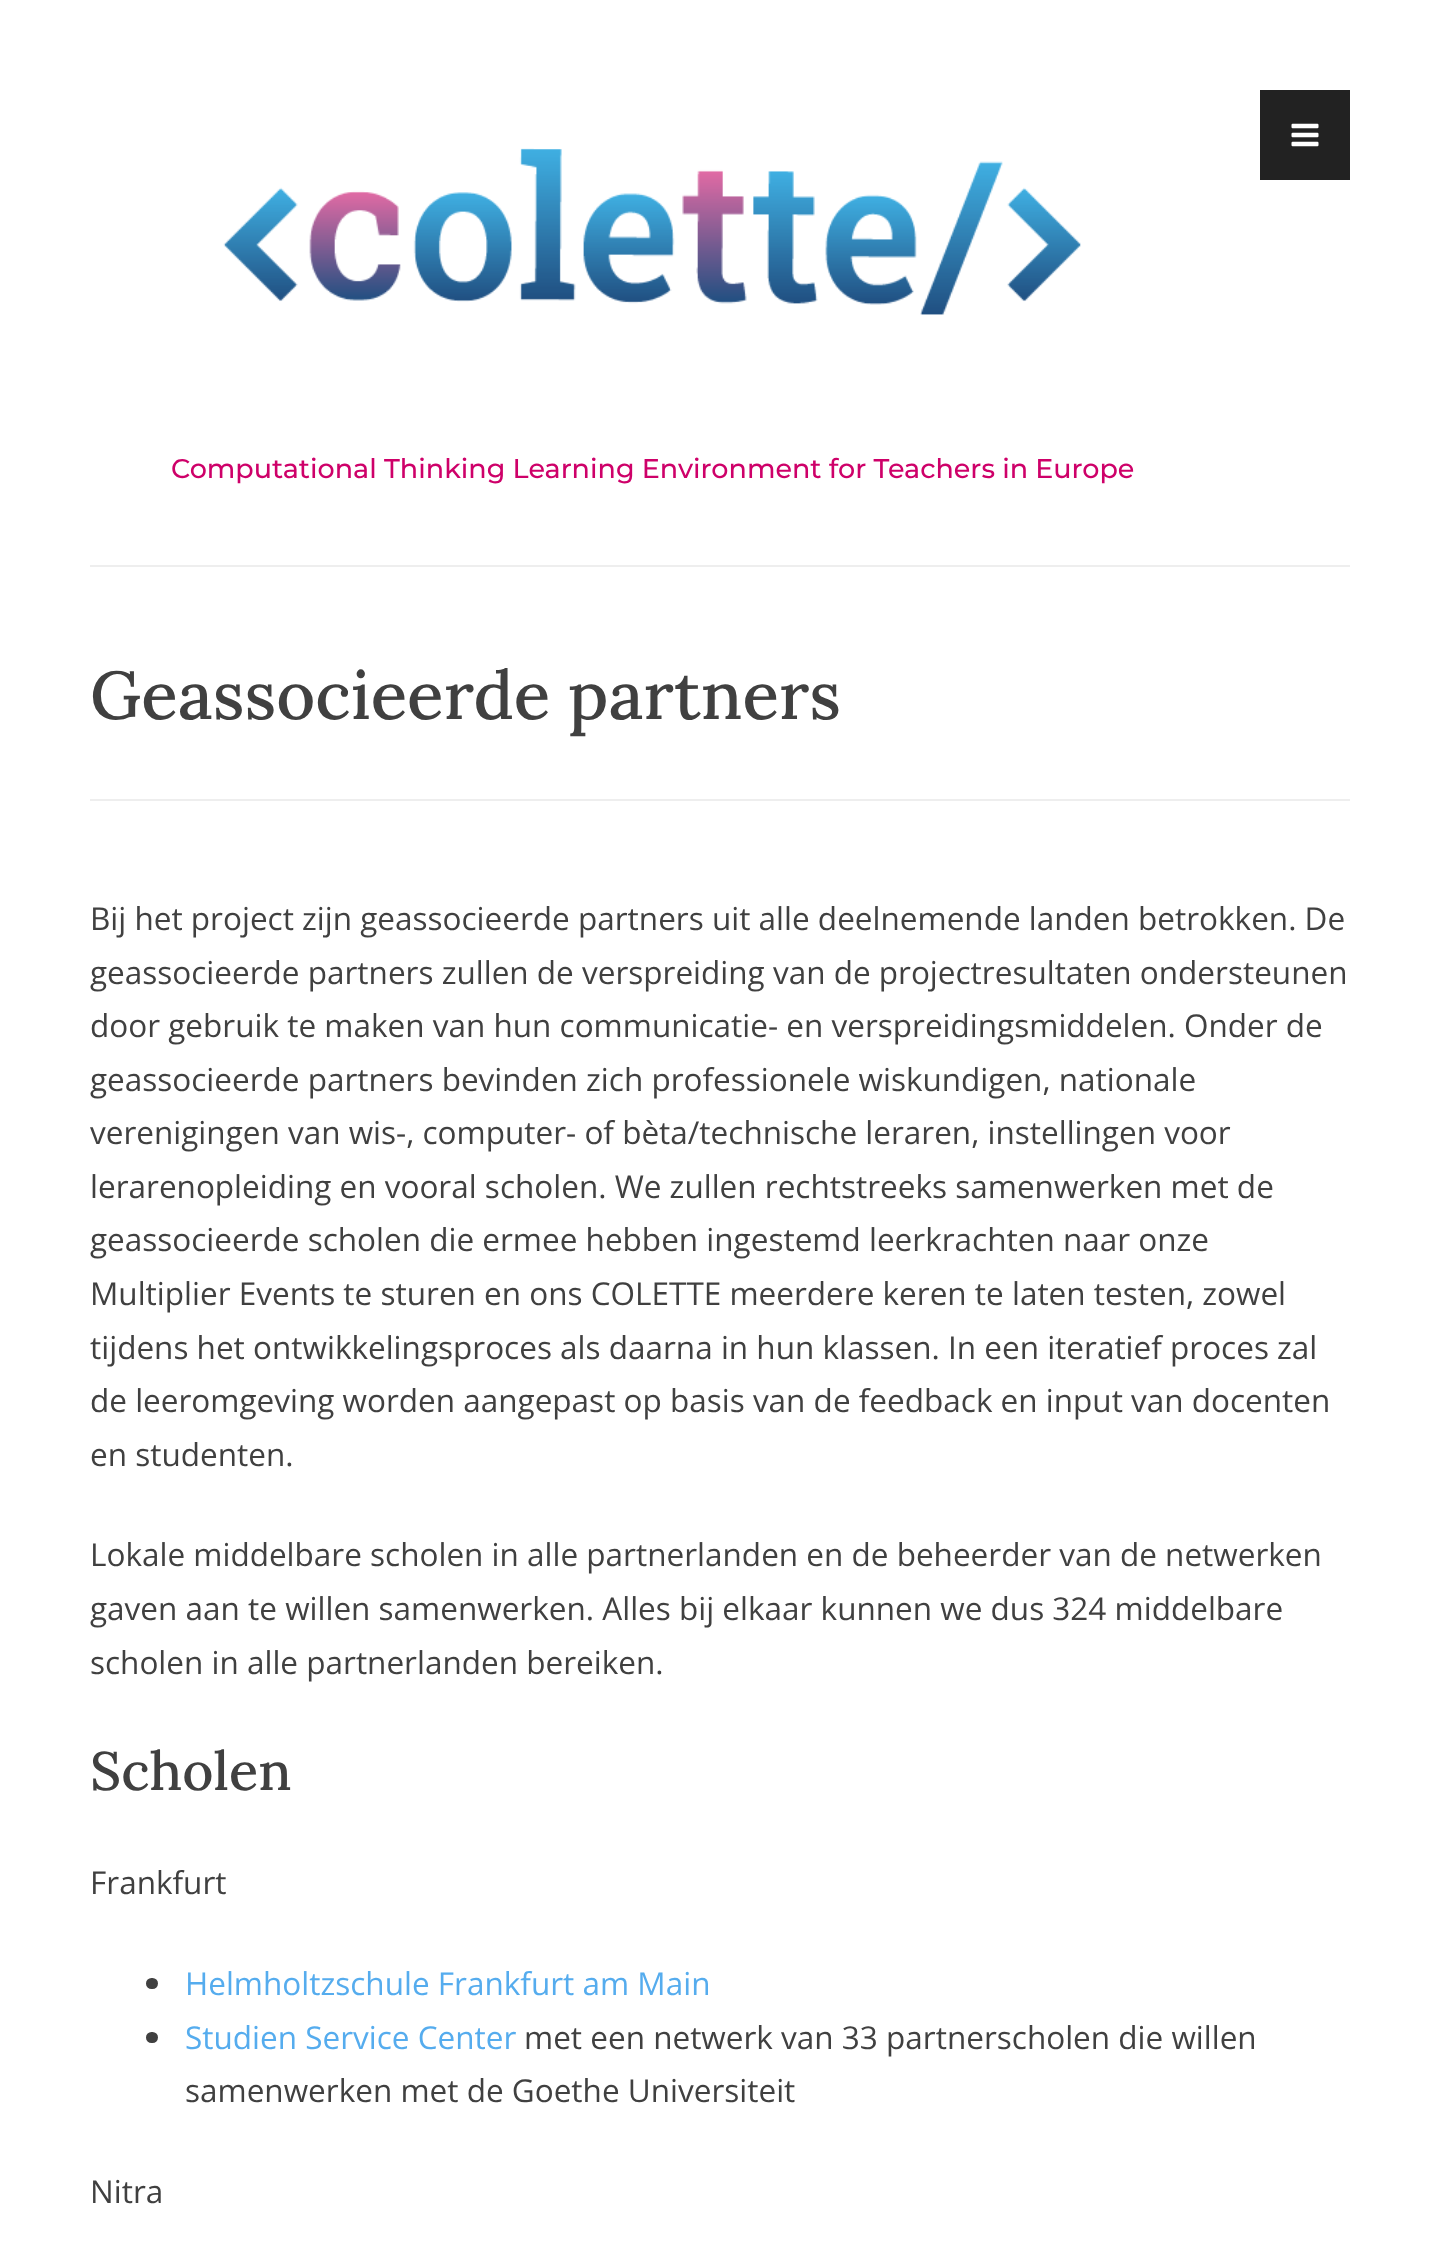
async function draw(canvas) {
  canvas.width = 1440;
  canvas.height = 2250;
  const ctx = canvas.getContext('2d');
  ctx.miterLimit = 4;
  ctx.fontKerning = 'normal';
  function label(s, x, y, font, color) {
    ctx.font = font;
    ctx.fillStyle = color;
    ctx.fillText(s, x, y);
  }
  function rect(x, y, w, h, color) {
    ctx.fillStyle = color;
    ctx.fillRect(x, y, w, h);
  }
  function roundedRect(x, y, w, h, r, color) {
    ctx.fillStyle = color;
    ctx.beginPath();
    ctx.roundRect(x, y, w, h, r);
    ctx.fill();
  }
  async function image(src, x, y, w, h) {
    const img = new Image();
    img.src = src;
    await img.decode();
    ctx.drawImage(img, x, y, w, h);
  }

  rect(0, 0, 1440, 2250, '#fff');
  rect(90, 565, 1260, 2, '#eee');
  rect(1260, 90, 90, 90, '#222');
  await image('assets/img1.png', 1291, 123, 28, 24);
  await image('assets/img2.png', 223, 148, 858, 167);
  label('Computational Thinking Learning Environment for Teachers in Europe', 171, 478, '500 27px Montserrat', '#ce0069');
  rect(90, 799, 1260, 2, '#eee');
  label('Geassocieerde partners', 90, 719, '500 67.5px Lora', '#404040');
  label('Bij het project zijn geassocieerde partners uit alle deelnemende landen betrokken. De', 90, 930, '31.5px Open Sans', '#404040');
  label('geassocieerde partners zullen de verspreiding van de projectresultaten ondersteunen', 90, 984, '31.5px Open Sans', '#404040');
  label('door gebruik te maken van hun communicatie- en verspreidingsmiddelen. Onder de', 90, 1037, '31.5px Open Sans', '#404040');
  label('geassocieerde partners bevinden zich professionele wiskundigen, nationale', 90, 1091, '31.5px Open Sans', '#404040');
  label('verenigingen van wis-, computer- of bèta/technische leraren, instellingen voor', 90, 1144, '31.5px Open Sans', '#404040');
  label('lerarenopleiding en vooral scholen. We zullen rechtstreeks samenwerken met de', 90, 1198, '31.5px Open Sans', '#404040');
  label('geassocieerde scholen die ermee hebben ingestemd leerkrachten naar onze', 90, 1251, '31.5px Open Sans', '#404040');
  label('Multiplier Events te sturen en ons COLETTE meerdere keren te laten testen, zowel', 90, 1305, '31.5px Open Sans', '#404040');
  label('tijdens het ontwikkelingsproces als daarna in hun klassen. In een iteratief proces zal', 90, 1359, '31.5px Open Sans', '#404040');
  label('de leeromgeving worden aangepast op basis van de feedback en input van docenten', 90, 1412, '31.5px Open Sans', '#404040');
  label('en studenten.', 90, 1466, '31.5px Open Sans', '#404040');
  label('Lokale middelbare scholen in alle partnerlanden en de beheerder van de netwerken', 90, 1566, '31.5px Open Sans', '#404040');
  label('gaven aan te willen samenwerken. Alles bij elkaar kunnen we dus 324 middelbare', 90, 1620, '31.5px Open Sans', '#404040');
  label('scholen in alle partnerlanden bereiken.', 90, 1674, '31.5px Open Sans', '#404040');
  label('Scholen', 90, 1790, '500 54px Lora', '#404040');
  label('Frankfurt', 90, 1894, '31.5px Open Sans', '#404040');
  roundedRect(146, 1978, 12, 11, 5.5, '#404040');
  label('Helmholtzschule Frankfurt am Main', 185, 1995, '31.5px Open Sans', '#55acee');
  roundedRect(146, 2032, 12, 11, 5.5, '#404040');
  label('Studien Service Center', 185, 2049, '31.5px Open Sans', '#55acee');
  label('met een netwerk van 33 partnerscholen die willen', 524, 2049, '31.5px Open Sans', '#404040');
  label('samenwerken met de Goethe Universiteit', 185, 2102, '31.5px Open Sans', '#404040');
  label('Nitra', 90, 2203, '31.5px Open Sans', '#404040');
}

draw(document.querySelector('canvas'));
